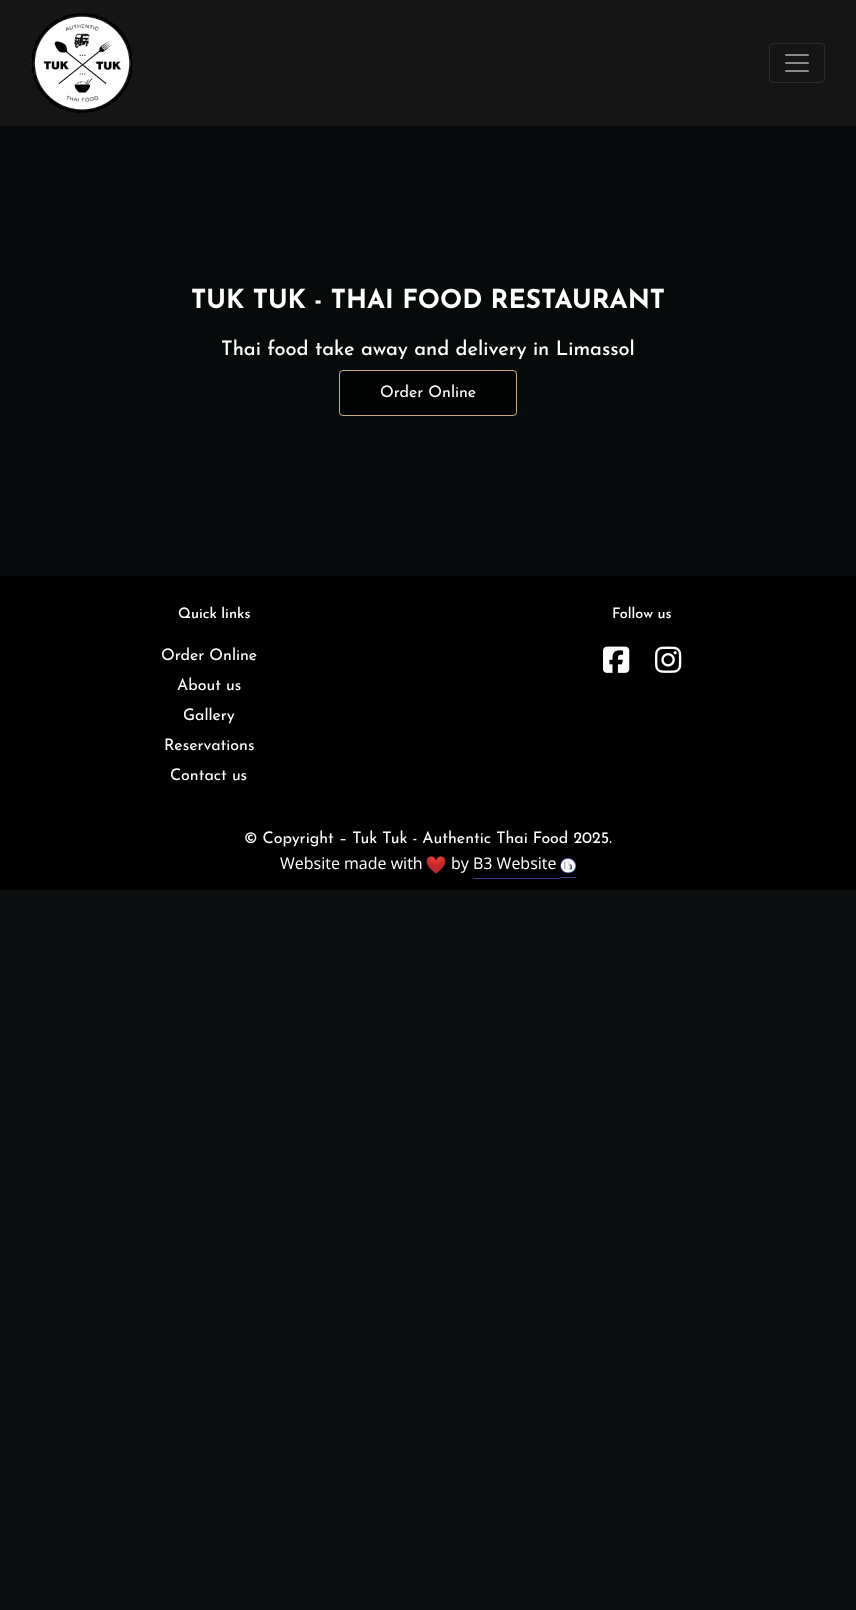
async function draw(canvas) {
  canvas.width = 856;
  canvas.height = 1610;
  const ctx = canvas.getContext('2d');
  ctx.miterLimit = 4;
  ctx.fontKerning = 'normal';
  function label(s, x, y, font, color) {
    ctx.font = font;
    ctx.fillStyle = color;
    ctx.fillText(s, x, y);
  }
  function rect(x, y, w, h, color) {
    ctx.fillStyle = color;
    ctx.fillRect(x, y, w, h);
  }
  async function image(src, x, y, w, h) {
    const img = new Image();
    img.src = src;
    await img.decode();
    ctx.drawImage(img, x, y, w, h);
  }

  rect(0, 0, 856, 1610, '#090d0e');
  rect(0, 0, 856, 126, '#151515');
  await image('assets/img1.png', 31, 13, 102, 100);
  ctx.beginPath();
  ctx.roundRect(769.5, 43.5, 55, 39, 3.5);
  ctx.strokeStyle = '#2c2c2c';
  ctx.stroke();
  await image('assets/img2.png', 785, 54, 24, 18);
  rect(0, 126, 856, 450, '#070a0a');
  label('TUK TUK - THAI FOOD RESTAURANT', 191, 308, 'bold 26px Josefin Sans', '#fff');
  label('Thai food take away and delivery in Limassol', 221, 355, '500 20px Josefin Sans', '#fff');
  ctx.fillStyle = '#010202';
  ctx.beginPath();
  ctx.roundRect(339.5, 370.5, 177, 45, 3.5);
  ctx.fill();
  ctx.strokeStyle = '#c9ab81';
  ctx.stroke();
  label('Order Online', 380, 397, '16px Josefin Sans', '#fff');
  rect(0, 576, 856, 314, '#000');
  label('Quick links', 178, 618, '500 14.5px Josefin Sans', '#fff');
  label('Order Online', 161, 660, '16px Josefin Sans', '#fff');
  label('About us', 177, 690, '16px Josefin Sans', '#fff');
  label('Gallery', 183, 720, '16px Josefin Sans', '#fff');
  label('Reservations', 164, 750, '16px Josefin Sans', '#fff');
  label('Contact us', 170, 780, '16px Josefin Sans', '#fff');
  label('Follow us', 612, 618, '500 14.5px Josefin Sans', '#fff');
  await image('assets/img3.png', 603, 646, 27, 27);
  await image('assets/img4.png', 655, 646, 27, 27);
  label('© Copyright – Tuk Tuk - Authentic Thai Food 2025.', 244, 843, '16px Josefin Sans', '#fff');
  label('Website made with', 280, 869, '16px Open Sans', '#fff');
  await image('assets/img5.png', 426, 856, 20, 18);
  label('by B3 Website', 451, 869, '16px Open Sans', '#fff');
  await image('assets/img6.png', 560, 858, 16, 15);
  rect(560, 877, 16, 1, '#453886');
  rect(473, 878, 87, 1, '#453886');
}

draw(document.querySelector('canvas'));
